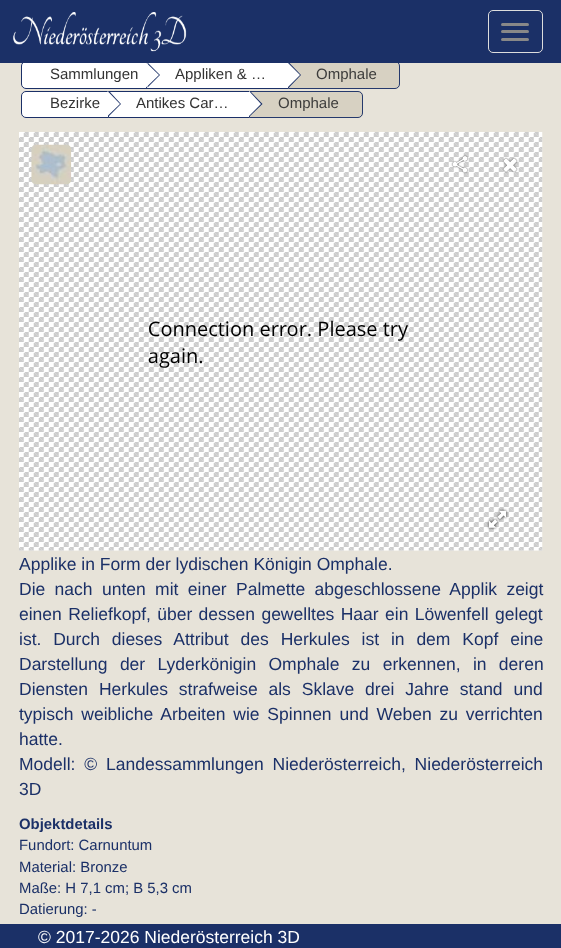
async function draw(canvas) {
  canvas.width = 561;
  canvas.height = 948;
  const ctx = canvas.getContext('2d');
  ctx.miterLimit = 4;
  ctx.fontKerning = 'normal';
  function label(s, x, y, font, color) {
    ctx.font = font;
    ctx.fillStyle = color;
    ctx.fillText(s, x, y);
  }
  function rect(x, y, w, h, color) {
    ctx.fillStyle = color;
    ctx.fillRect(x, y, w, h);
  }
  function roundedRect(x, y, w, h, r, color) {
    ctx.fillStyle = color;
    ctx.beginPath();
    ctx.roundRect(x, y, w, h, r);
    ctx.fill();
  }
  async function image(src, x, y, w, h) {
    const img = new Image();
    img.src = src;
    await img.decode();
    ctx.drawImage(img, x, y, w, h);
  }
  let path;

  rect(0, 0, 561, 948, '#e7e3d9');
  ctx.fillStyle = '#fff';
  ctx.beginPath();
  ctx.roundRect(21.5, 61.5, 126, 27, [4.5, 0, 0, 4.5]);
  ctx.fill();
  ctx.strokeStyle = '#1b3067';
  ctx.stroke();
  rect(147, 63, 141, 25, '#fff');
  ctx.strokeRect(146.5, 61.5, 142, 27);
  ctx.fillStyle = '#1b3067';
  path = new Path2D('M147.5 87.5V62.5L160 75Z');
  ctx.fill(path);
  ctx.fillStyle = '#fff';
  path = new Path2D('M146 87.5V62.5L159 75Z');
  ctx.fill(path);
  ctx.fillStyle = '#d6d0c1f2';
  ctx.beginPath();
  ctx.roundRect(288, 61, 112, 28, [0, 5, 5, 0]);
  ctx.fill();
  ctx.beginPath();
  ctx.roundRect(288.5, 61.5, 111, 27, [0, 4.5, 4.5, 0]);
  ctx.strokeStyle = '#1b3067f2';
  ctx.stroke();
  ctx.fillStyle = '#1b3067';
  path = new Path2D('M289 87.5V62.5L301 75Z');
  ctx.fill(path);
  ctx.fillStyle = '#fff';
  path = new Path2D('M287.5 87.5V62.5L300 75Z');
  ctx.fill(path);
  rect(0, 0, 561, 63, '#1b3067');
  await image('assets/img1.png', 13, 12, 174, 40);
  ctx.beginPath();
  ctx.roundRect(488.5, 10.5, 54, 42, 4.5);
  ctx.strokeStyle = '#ddd';
  ctx.stroke();
  roundedRect(501, 23, 28, 3, 1.5, '#888');
  roundedRect(501, 30, 28, 3, 1.5, '#888');
  roundedRect(501, 38, 28, 3, 1.5, '#888');
  label('Sammlungen', 50, 79, '15px Liberation Sans', '#333');
  label('Appliken & …', 175, 79, '15px Liberation Sans', '#333');
  label('Omphale', 316, 79, '15px Liberation Sans', '#3c3c3b');
  ctx.fillStyle = '#fff';
  ctx.beginPath();
  ctx.roundRect(21.5, 91.5, 87, 26, [4.5, 0, 0, 4.5]);
  ctx.fill();
  ctx.strokeStyle = '#1b3067';
  ctx.stroke();
  ctx.beginPath();
  ctx.rect(108.5, 91.5, 141, 26);
  ctx.fill();
  ctx.stroke();
  ctx.fillStyle = '#1b3067';
  path = new Path2D('M109 116V91L121 104Z');
  ctx.fill(path);
  ctx.fillStyle = '#fff';
  path = new Path2D('M107.5 116V91L120 104Z');
  ctx.fill(path);
  label('Bezirke', 50, 108, '15px Liberation Sans', '#333');
  ctx.fillStyle = '#d6d0c1f2';
  ctx.beginPath();
  ctx.roundRect(249, 91, 114, 27, [0, 5, 5, 0]);
  ctx.fill();
  ctx.beginPath();
  ctx.roundRect(249.5, 91.5, 113, 26, [0, 4.5, 4.5, 0]);
  ctx.strokeStyle = '#1b3067f2';
  ctx.stroke();
  ctx.fillStyle = '#1b3067';
  path = new Path2D('M250 116V91L262.5 104Z');
  ctx.fill(path);
  ctx.fillStyle = '#fff';
  path = new Path2D('M249 116V91L261 104Z');
  ctx.fill(path);
  label('Antikes Car…', 136, 108, '15px Liberation Sans', '#333');
  label('Omphale', 278, 108, '15px Liberation Sans', '#3c3c3b');
  await image('assets/img2.png', 19, 132, 524, 419);
  label('Applike in Form der lydischen Königin Omphale.', 19, 570, '17.5px Liberation Sans', '#1b3067');
  ctx.wordSpacing = '4.5px';
  label('Die nach unten mit einer Palmette abgeschlossene Applik zeigt', 19, 595, '17.5px Liberation Sans', '#1b3067');
  ctx.wordSpacing = '1.5px';
  label('einen Reliefkopf, über dessen gewelltes Haar ein Löwenfell gelegt', 19, 620, '17.5px Liberation Sans', '#1b3067');
  ctx.wordSpacing = '7px';
  label('ist. Durch dieses Attribut des Herkules ist in dem Kopf eine', 19, 645, '17.5px Liberation Sans', '#1b3067');
  ctx.wordSpacing = '7.5px';
  label('Darstellung der Lyderkönigin Omphale zu erkennen, in deren', 19, 670, '17.5px Liberation Sans', '#1b3067');
  ctx.wordSpacing = '6px';
  label('Diensten Herkules strafweise als Sklave drei Jahre stand und', 19, 695, '17.5px Liberation Sans', '#1b3067');
  ctx.wordSpacing = '3px';
  label('typisch weibliche Arbeiten wie Spinnen und Weben zu verrichten', 19, 720, '17.5px Liberation Sans', '#1b3067');
  ctx.wordSpacing = '0px';
  label('hatte.', 19, 745, '17.5px Liberation Sans', '#1b3067');
  ctx.wordSpacing = '4px';
  label('Modell: © Landessammlungen Niederösterreich, Niederösterreich', 19, 770, '17.5px Liberation Sans', '#1b3067');
  ctx.wordSpacing = '0px';
  label('3D', 19, 795, '17.5px Liberation Sans', '#1b3067');
  label('Objektdetails', 19, 829, 'bold 14.9px Liberation Sans', '#1b3067');
  label('Fundort: Carnuntum', 19, 850, '14.9px Liberation Sans', '#1b3067');
  label('Material: Bronze', 19, 872, '14.9px Liberation Sans', '#1b3067');
  label('Maße: H 7,1 cm; B 5,3 cm', 19, 893, '14.9px Liberation Sans', '#1b3067');
  label('Datierung: -', 19, 914, '14.9px Liberation Sans', '#1b3067');
  rect(0, 924, 561, 24, '#1b3067');
  label('© 2017-2026 Niederösterreich 3D', 38, 943, '17.5px Liberation Sans', '#fff');
}

draw(document.querySelector('canvas'));
